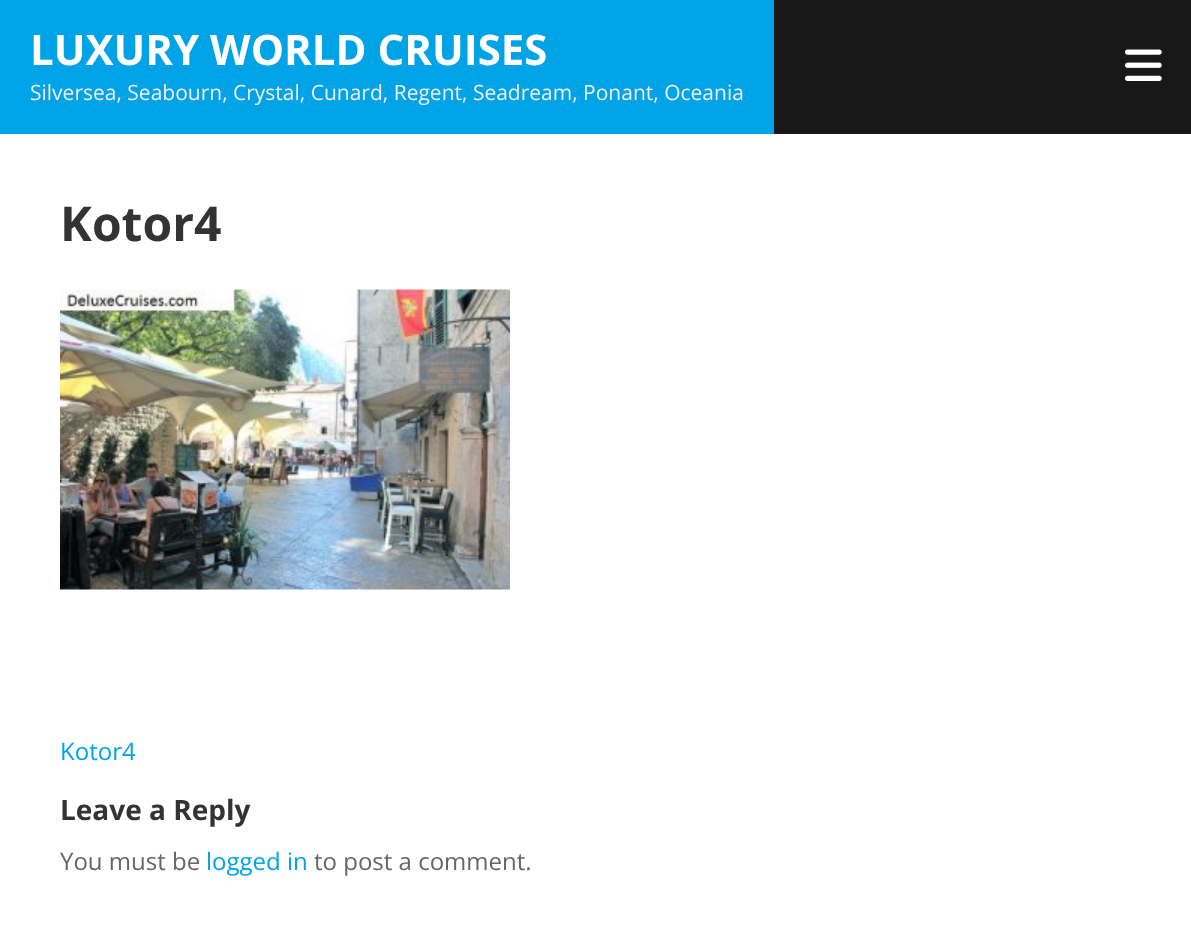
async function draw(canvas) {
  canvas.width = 1191;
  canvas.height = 939;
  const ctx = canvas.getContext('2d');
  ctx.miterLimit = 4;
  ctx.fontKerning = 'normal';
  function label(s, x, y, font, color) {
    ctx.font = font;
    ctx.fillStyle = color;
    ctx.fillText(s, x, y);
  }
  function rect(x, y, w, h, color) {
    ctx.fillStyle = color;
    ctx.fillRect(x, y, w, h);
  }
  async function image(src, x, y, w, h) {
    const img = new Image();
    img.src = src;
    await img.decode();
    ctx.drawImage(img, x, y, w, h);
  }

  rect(0, 0, 1191, 939, '#fff');
  rect(774, 0, 417, 134, '#181818');
  rect(0, 0, 774, 134, '#00a3e6');
  label('LUXURY WORLD CRUISES', 30, 65, 'bold 42px Open Sans', '#fff');
  label('Silversea, Seabourn, Crystal, Cunard, Regent, Seadream, Ponant, Oceania', 30, 100, '21px Open Sans', '#eee');
  await image('assets/img1.png', 1125, 49, 37, 32);
  label('Kotor4', 60, 241, 'bold 48px Open Sans', '#333');
  await image('assets/img2.png', 60, 289, 450, 301);
  label('Kotor4', 60, 760, '24px Open Sans', '#00a3e6');
  label('Leave a Reply', 60, 820, 'bold 28px Open Sans', '#333');
  label('You must be', 60, 870, '24px Open Sans', '#666');
  label('logged in', 206, 870, '24px Open Sans', '#00a3e6');
  label('to post a comment.', 314, 870, '24px Open Sans', '#666');
}

draw(document.querySelector('canvas'));
